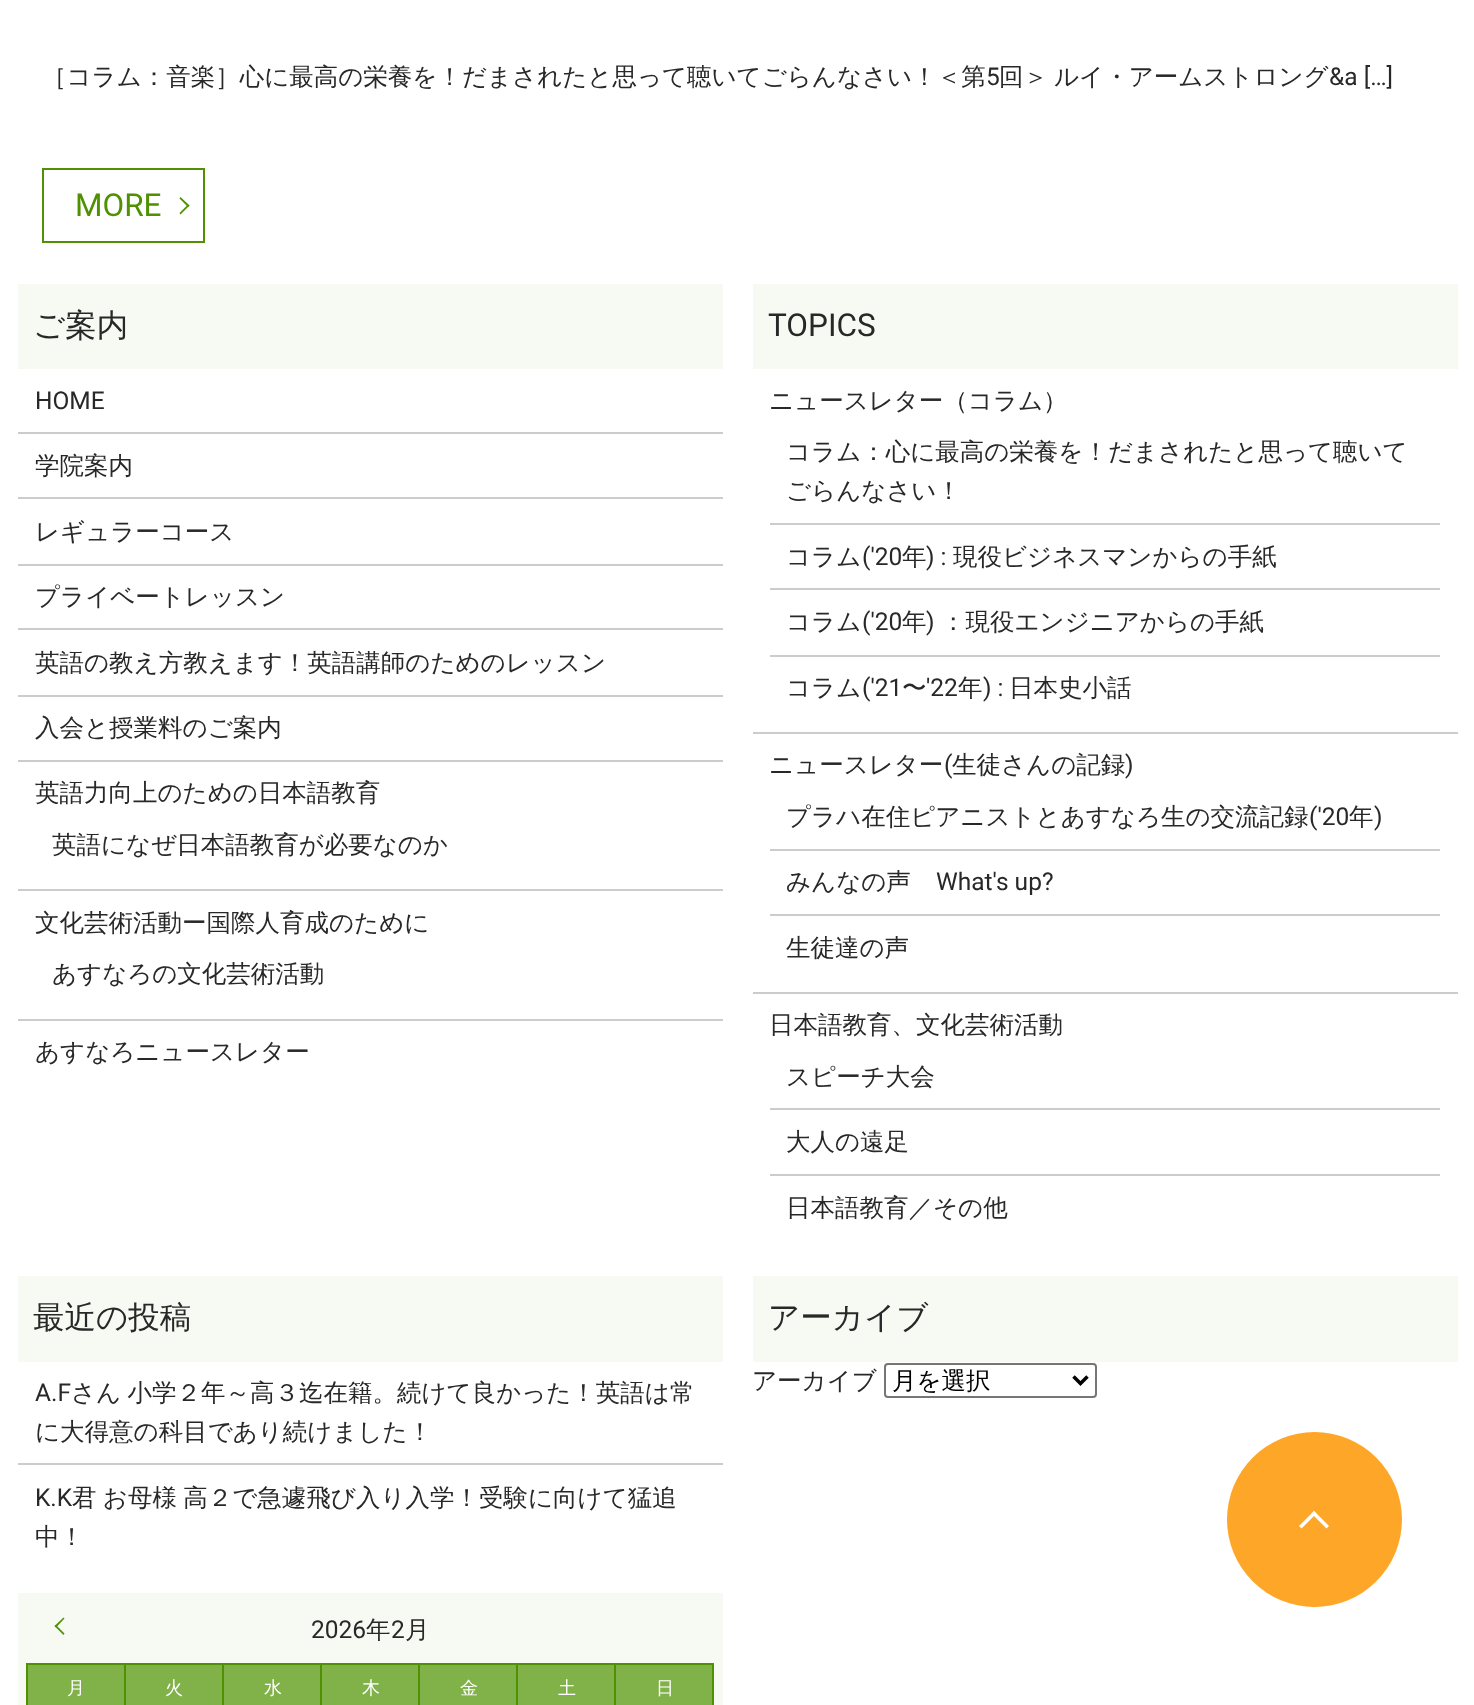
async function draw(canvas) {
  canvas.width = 1474;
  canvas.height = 1705;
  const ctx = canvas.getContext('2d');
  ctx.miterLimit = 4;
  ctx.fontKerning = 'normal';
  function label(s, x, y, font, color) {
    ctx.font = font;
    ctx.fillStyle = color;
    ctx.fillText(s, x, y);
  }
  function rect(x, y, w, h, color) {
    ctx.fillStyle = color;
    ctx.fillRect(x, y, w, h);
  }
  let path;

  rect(0, 0, 1474, 1705, '#fff');
  label('［コラム：音楽］心に最高の栄養を！だまされたと思って聴いてごらんなさい！＜第', 42, 85, '500 24.5px WenQuanYi Zen Hei', '#282828');
  label('5', 986, 85, '24.5px Roboto', '#282828');
  label('回＞', 999, 85, '500 24.5px WenQuanYi Zen Hei', '#282828');
  label('ルイ・アームストロング', 1054, 85, '500 24.5px WenQuanYi Zen Hei', '#282828');
  label('&a […]', 1329, 85, '24.5px Roboto', '#282828');
  ctx.strokeStyle = '#4f9101';
  ctx.lineWidth = 2;
  ctx.strokeRect(43, 169, 161, 73);
  label('MORE', 75, 216, '31.5px Roboto', '#4f9101');
  path = new Path2D('M180.5 197L189.5 205.5L188 207L179.5 198.5Z');
  ctx.fill(path);
  path = new Path2D('M188 204.5L189.5 205.5L180.5 214.5L179.5 213Z');
  ctx.fill(path);
  rect(18, 284, 705, 85, '#f6faf2');
  label('ご案内', 33, 336, '500 31.5px WenQuanYi Zen Hei', '#282828');
  rect(18, 432, 705, 2, '#ccc');
  label('HOME', 35, 409, '24.5px Roboto', '#282828');
  rect(18, 497, 705, 2, '#ccc');
  label('学院案内', 35, 474, '500 24.5px WenQuanYi Zen Hei', '#282828');
  rect(18, 564, 705, 2, '#ccc');
  label('レギュラーコース', 35, 540, '500 24.5px WenQuanYi Zen Hei', '#282828');
  rect(18, 628, 705, 2, '#ccc');
  label('プライベートレッスン', 35, 605, '500 24.5px WenQuanYi Zen Hei', '#282828');
  rect(18, 695, 705, 2, '#ccc');
  label('英語の教え方教えます！英語講師のためのレッスン', 35, 671, '500 24.5px WenQuanYi Zen Hei', '#282828');
  rect(18, 760, 705, 2, '#ccc');
  label('入会と授業料のご案内', 35, 736, '500 24.5px WenQuanYi Zen Hei', '#282828');
  rect(18, 889, 705, 2, '#ccc');
  label('英語力向上のための日本語教育', 35, 801, '500 24.5px WenQuanYi Zen Hei', '#282828');
  label('英語になぜ日本語教育が必要なのか', 52, 853, '500 24.5px WenQuanYi Zen Hei', '#282828');
  rect(18, 1019, 705, 2, '#ccc');
  label('文化芸術活動ー国際人育成のために', 35, 931, '500 24.5px WenQuanYi Zen Hei', '#282828');
  label('あすなろの文化芸術活動', 52, 982, '500 24.5px WenQuanYi Zen Hei', '#282828');
  label('あすなろニュースレター', 35, 1060, '500 24.5px WenQuanYi Zen Hei', '#282828');
  rect(753, 284, 705, 85, '#f6faf2');
  label('TOPICS', 768, 336, '31.5px Roboto', '#282828');
  rect(753, 732, 705, 2, '#ccc');
  label('ニュースレター（コラム）', 769, 409, '500 24.5px WenQuanYi Zen Hei', '#282828');
  rect(770, 523, 670, 2, '#ccc');
  label('コラム：心に最高の栄養を！だまされたと思って聴いて', 786, 460, '500 24.5px WenQuanYi Zen Hei', '#282828');
  label('ごらんなさい！', 786, 499, '500 24.5px WenQuanYi Zen Hei', '#282828');
  rect(770, 588, 670, 2, '#ccc');
  label('コラム', 786, 565, '500 24.5px WenQuanYi Zen Hei', '#282828');
  label('(\'20', 862, 565, '24.5px Roboto', '#282828');
  label('年', 902, 565, '500 24.5px WenQuanYi Zen Hei', '#282828');
  label(') :', 926, 565, '24.5px Roboto', '#282828');
  label('現役ビジネスマンからの手紙', 953, 565, '500 24.5px WenQuanYi Zen Hei', '#282828');
  rect(770, 655, 670, 2, '#ccc');
  label('コラム', 786, 630, '500 24.5px WenQuanYi Zen Hei', '#282828');
  label('(\'20', 862, 630, '24.5px Roboto', '#282828');
  label('年', 902, 630, '500 24.5px WenQuanYi Zen Hei', '#282828');
  label(')', 926, 630, '24.5px Roboto', '#282828');
  label('：現役エンジニアからの手紙', 941, 630, '500 24.5px WenQuanYi Zen Hei', '#282828');
  label('コラム', 786, 696, '500 24.5px WenQuanYi Zen Hei', '#282828');
  label('(\'21', 862, 696, '24.5px Roboto', '#282828');
  label('〜', 902, 696, '500 24.5px WenQuanYi Zen Hei', '#282828');
  label('\'22', 926, 696, '24.5px Roboto', '#282828');
  label('年', 958, 696, '500 24.5px WenQuanYi Zen Hei', '#282828');
  label(') :', 983, 696, '24.5px Roboto', '#282828');
  label('日本史小話', 1009, 696, '500 24.5px WenQuanYi Zen Hei', '#282828');
  rect(753, 992, 705, 2, '#ccc');
  label('ニュースレター', 769, 773, '500 24.5px WenQuanYi Zen Hei', '#282828');
  label('(', 944, 773, '24.5px Roboto', '#282828');
  label('生徒さんの記録', 952, 773, '500 24.5px WenQuanYi Zen Hei', '#282828');
  label(')', 1125, 773, '24.5px Roboto', '#282828');
  rect(770, 849, 670, 2, '#ccc');
  label('プラハ在住ピアニストとあすなろ生の交流記録', 786, 825, '500 24.5px WenQuanYi Zen Hei', '#282828');
  label('(\'20', 1309, 825, '24.5px Roboto', '#282828');
  label('年', 1349, 825, '500 24.5px WenQuanYi Zen Hei', '#282828');
  label(')', 1374, 825, '24.5px Roboto', '#282828');
  rect(770, 914, 670, 2, '#ccc');
  label('みんなの声', 786, 890, '500 24.5px WenQuanYi Zen Hei', '#282828');
  label('What\'s up?', 936, 890, '24.5px Roboto', '#282828');
  label('生徒達の声', 786, 956, '500 24.5px WenQuanYi Zen Hei', '#282828');
  label('日本語教育、文化芸術活動', 769, 1033, '500 24.5px WenQuanYi Zen Hei', '#282828');
  rect(770, 1108, 670, 2, '#ccc');
  label('スピーチ大会', 786, 1085, '500 24.5px WenQuanYi Zen Hei', '#282828');
  rect(770, 1174, 670, 2, '#ccc');
  label('大人の遠足', 786, 1150, '500 24.5px WenQuanYi Zen Hei', '#282828');
  label('日本語教育／その他', 786, 1216, '500 24.5px WenQuanYi Zen Hei', '#282828');
  rect(18, 1276, 705, 86, '#f6faf2');
  label('最近の投稿', 33, 1328, '500 31.5px WenQuanYi Zen Hei', '#282828');
  rect(18, 1463, 705, 2, '#ccc');
  label('A.F', 35, 1401, '24.5px Roboto', '#282828');
  ctx.wordSpacing = '-1px';
  label('さん 小学２年～高３迄在籍。続けて良かった！英語は常', 71, 1401, '500 24.5px WenQuanYi Zen Hei', '#282828');
  ctx.wordSpacing = '0px';
  label('に大得意の科目であり続けました！', 35, 1440, '500 24.5px WenQuanYi Zen Hei', '#282828');
  label('K.K', 35, 1506, '24.5px Roboto', '#282828');
  ctx.wordSpacing = '-1px';
  label('君 お母様 高２で急遽飛び入り入学！受験に向けて猛追', 72, 1506, '500 24.5px WenQuanYi Zen Hei', '#282828');
  ctx.wordSpacing = '0px';
  label('中！', 35, 1545, '500 24.5px WenQuanYi Zen Hei', '#282828');
  rect(753, 1276, 705, 86, '#f6faf2');
  label('アーカイブ', 768, 1328, '500 31.5px WenQuanYi Zen Hei', '#282828');
  label('アーカイブ', 752, 1389, '500 24.5px WenQuanYi Zen Hei', '#282828');
  ctx.beginPath();
  ctx.roundRect(885, 1364, 211, 33, 3);
  ctx.strokeStyle = '#767676';
  ctx.stroke();
  path = new Path2D('M1073.5 1376.5L1080.5 1383.5L1087.5 1376.5');
  ctx.strokeStyle = '#000';
  ctx.lineWidth = 3.5;
  ctx.stroke(path);
  label('月を選択', 892, 1389, '500 24.5px WenQuanYi Zen Hei', '#000');
  rect(18, 1593, 705, 112, '#f6faf2');
  ctx.fillStyle = '#4f9101';
  path = new Path2D('M54.5 1626L63.5 1617.5L64.5 1618.5L56 1627.5Z');
  ctx.fill(path);
  path = new Path2D('M54.5 1626L56 1625L64.5 1633.5L63.5 1635Z');
  ctx.fill(path);
  label('2026', 311, 1638, '24.5px Roboto', '#282828');
  label('年', 366, 1638, '500 24.5px WenQuanYi Zen Hei', '#282828');
  label('2', 391, 1638, '24.5px Roboto', '#282828');
  label('月', 405, 1638, '500 24.5px WenQuanYi Zen Hei', '#282828');
  rect(28, 1665, 96, 40, '#81b149');
  rect(614, 1663, 100, 2, '#4f9101');
  rect(614, 1663, 2, 42, '#4f9101');
  rect(516, 1663, 100, 2, '#4f9101');
  rect(516, 1663, 2, 42, '#4f9101');
  rect(418, 1663, 100, 2, '#4f9101');
  rect(418, 1663, 2, 42, '#4f9101');
  rect(320, 1663, 100, 2, '#4f9101');
  rect(320, 1663, 2, 42, '#4f9101');
  rect(222, 1663, 100, 2, '#4f9101');
  rect(222, 1663, 2, 42, '#4f9101');
  rect(124, 1663, 100, 2, '#4f9101');
  rect(124, 1663, 2, 42, '#4f9101');
  rect(26, 1663, 100, 2, '#4f9101');
  rect(26, 1663, 2, 42, '#4f9101');
  label('月', 67, 1694, '500 18px WenQuanYi Zen Hei', '#fff');
  rect(126, 1665, 96, 40, '#81b149');
  label('火', 165, 1694, '500 18px WenQuanYi Zen Hei', '#fff');
  rect(224, 1665, 96, 40, '#81b149');
  label('水', 264, 1694, '500 18px WenQuanYi Zen Hei', '#fff');
  rect(322, 1665, 96, 40, '#81b149');
  label('木', 362, 1694, '500 18px WenQuanYi Zen Hei', '#fff');
  rect(420, 1665, 96, 40, '#81b149');
  label('金', 460, 1694, '500 18px WenQuanYi Zen Hei', '#fff');
  rect(518, 1665, 96, 40, '#81b149');
  label('土', 558, 1694, '500 18px WenQuanYi Zen Hei', '#fff');
  rect(616, 1665, 96, 40, '#81b149');
  rect(712, 1663, 2, 42, '#4f9101');
  label('日', 656, 1694, '500 18px WenQuanYi Zen Hei', '#fff');
  ctx.fillStyle = '#fea628';
  ctx.beginPath();
  ctx.arc(1314.5, 1519.5, 87.5, 0, 2 * Math.PI);
  ctx.fill();
  ctx.fillStyle = '#fff';
  path = new Path2D('M1314 1511L1329 1526L1326.5 1528.5L1311.5 1513.5Z');
  ctx.fill(path);
  path = new Path2D('M1314 1511L1316.5 1513.5L1301.5 1528.5L1299 1526Z');
  ctx.fill(path);
}

draw(document.querySelector('canvas'));
